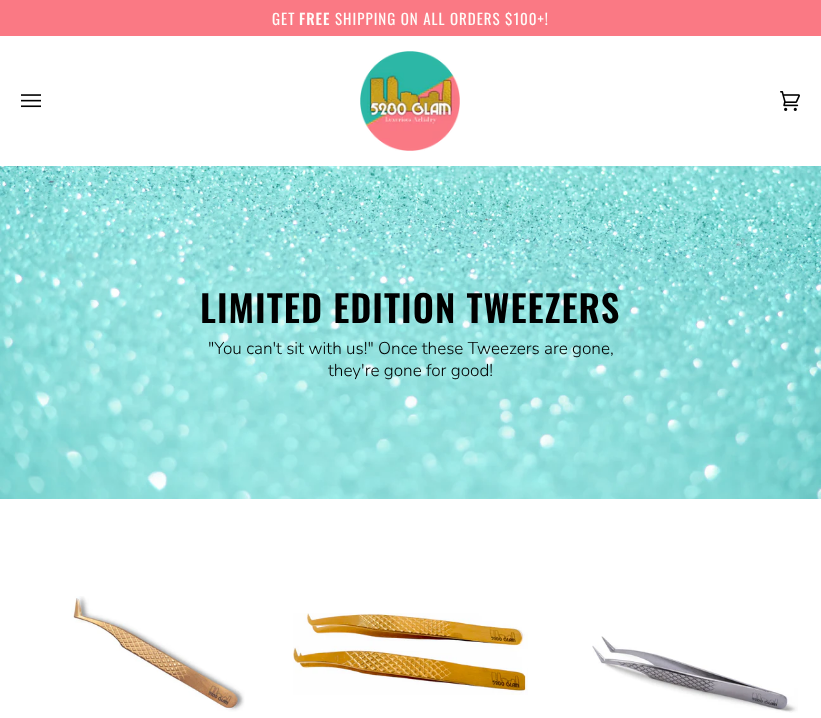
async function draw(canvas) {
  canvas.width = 821;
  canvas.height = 718;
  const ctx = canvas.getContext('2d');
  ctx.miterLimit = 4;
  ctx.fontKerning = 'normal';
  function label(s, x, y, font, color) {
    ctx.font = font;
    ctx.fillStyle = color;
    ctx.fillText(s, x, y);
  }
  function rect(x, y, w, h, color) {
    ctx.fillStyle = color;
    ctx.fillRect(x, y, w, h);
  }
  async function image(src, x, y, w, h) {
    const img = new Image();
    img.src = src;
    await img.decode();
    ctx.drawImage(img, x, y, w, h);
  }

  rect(0, 0, 821, 718, '#fff');
  rect(0, 0, 821, 36, '#fa7984');
  ctx.letterSpacing = '1px';
  label('GET', 272, 25, '15px Oswald', '#fffcf9');
  label('FREE', 299, 25, '500 15px Oswald', '#fffcf9');
  label('SHIPPING ON ALL ORDERS $100+!', 335, 25, '15px Oswald', '#fffcf9');
  await image('assets/img1.png', 21, 94, 20, 14);
  await image('assets/img2.png', 360, 51, 100, 100);
  await image('assets/img3.png', 780, 91, 20, 20);
  await image('assets/img4.png', 0, 166, 821, 333);
  label('LIMITED EDITION TWEEZERS', 200, 323, '600 36.75px Oswald', '#000');
  ctx.letterSpacing = '0px';
  label('"You can\'t sit with us!" Once these Tweezers are gone,', 208, 354, '300 17.15px Nunito', '#000');
  label('they\'re gone for good!', 328, 376, '300 17.15px Nunito', '#000');
  await image('assets/img5.png', 71, 596, 174, 116);
  await image('assets/img6.png', 293, 613, 235, 82);
  await image('assets/img7.png', 592, 636, 206, 77);
}

draw(document.querySelector('canvas'));
